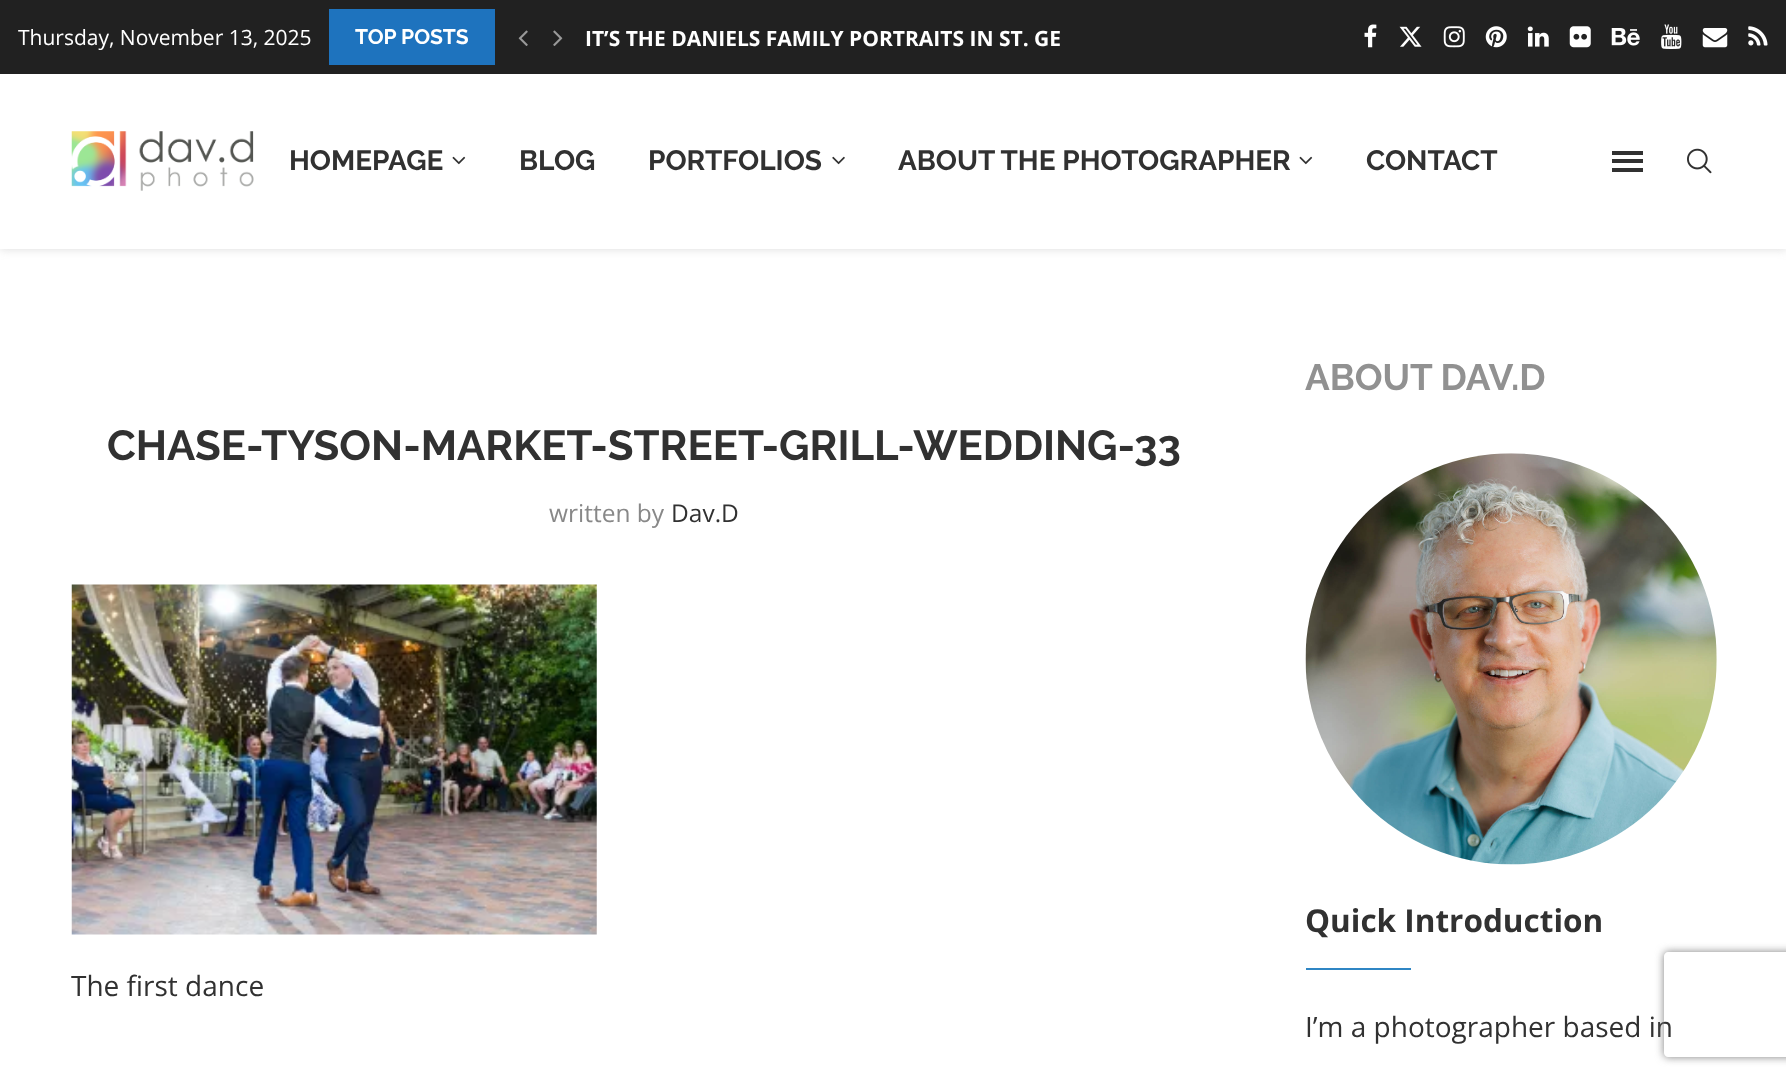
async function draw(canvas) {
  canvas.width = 1786;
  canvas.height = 1080;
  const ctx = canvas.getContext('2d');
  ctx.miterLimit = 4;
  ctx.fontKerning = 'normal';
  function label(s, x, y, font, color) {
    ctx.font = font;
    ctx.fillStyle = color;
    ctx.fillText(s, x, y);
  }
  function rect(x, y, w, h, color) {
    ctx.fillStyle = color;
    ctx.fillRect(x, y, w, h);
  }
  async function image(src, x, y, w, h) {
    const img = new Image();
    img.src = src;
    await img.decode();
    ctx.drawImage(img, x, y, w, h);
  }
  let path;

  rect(0, 0, 1786, 1080, '#fff');
  ctx.fillStyle = '#bebebe75';
  ctx.filter = 'blur(4.5px)';
  ctx.beginPath();
  ctx.rect(0, 2, 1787, 248);
  ctx.fill();
  ctx.filter = 'none';
  rect(0, 0, 1786, 74, '#212121');
  label('Thursday, November 13, 2025', 18, 45, '21px Open Sans', '#fff');
  rect(329, 9, 166, 56, '#1e73be');
  label('TOP POSTS', 355, 44, 'bold 21px Raleway', '#fff');
  await image('assets/img1.png', 518, 30, 10, 16);
  await image('assets/img2.png', 553, 30, 10, 16);
  label('IT’S THE DANIELS FAMILY PORTRAITS IN ST. GE', 585, 46, 'bold 21px Open Sans', '#fff');
  await image('assets/img3.png', 1364, 24, 13, 24);
  await image('assets/img4.png', 1399, 26, 23, 21);
  await image('assets/img5.png', 1443, 26, 22, 22);
  await image('assets/img6.png', 1485, 26, 22, 22);
  await image('assets/img7.png', 1527, 26, 22, 21);
  await image('assets/img8.png', 1569, 26, 22, 22);
  await image('assets/img9.png', 1611, 28, 29, 18);
  await image('assets/img10.png', 1661, 24, 21, 25);
  await image('assets/img11.png', 1702, 28, 26, 20);
  await image('assets/img12.png', 1748, 26, 20, 20);
  rect(0, 74, 1786, 175, '#fff');
  await image('assets/img13.png', 71, 131, 183, 60);
  label('HOMEPAGE', 289, 170, 'bold 28px Raleway', '#313131');
  await image('assets/img14.png', 452, 156, 14, 9);
  label('BLOG', 519, 170, 'bold 28px Raleway', '#313131');
  label('PORTFOLIOS', 648, 170, 'bold 28px Raleway', '#313131');
  await image('assets/img15.png', 832, 156, 13, 9);
  label('ABOUT THE PHOTOGRAPHER', 898, 170, 'bold 28px Raleway', '#313131');
  await image('assets/img14.png', 1299, 156, 14, 9);
  label('CONTACT', 1366, 170, 'bold 28px Raleway', '#313131');
  rect(1612, 151, 31, 4, '#313131');
  rect(1612, 168, 31, 4, '#313131');
  rect(1612, 159, 31, 4, '#313131');
  await image('assets/img16.png', 1687, 148, 25, 26);
  label('CHASE-TYSON-MARKET-STREET-GRILL-WEDDING-33', 107, 460, 'bold 42px Raleway', '#313131');
  label('written by', 549, 522, '24.5px Open Sans', '#888');
  label('Dav.D', 671, 522, '24.5px Open Sans', '#313131');
  await image('assets/img17.png', 71, 584, 526, 351);
  label('The first dance', 71, 996, '28px Open Sans', '#313131');
  label('ABOUT DAV.D', 1305, 390, 'bold 36.75px Raleway', '#919191');
  await image('assets/img18.png', 1305, 453, 412, 412);
  label('Quick Introduction', 1305, 932, 'bold 31.5px Open Sans', '#313131');
  rect(1306, 968, 105, 2, '#2f86c4');
  label('I’m a photographer based in', 1305, 1037, '28px Open Sans', '#313131');
  ctx.save();
  path = new Path2D('M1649 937H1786V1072H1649ZM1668 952H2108C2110 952 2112 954 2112 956V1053C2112 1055 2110 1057 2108 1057H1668C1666 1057 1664 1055 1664 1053V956C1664 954 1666 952 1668 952Z');
  ctx.clip(path, 'evenodd');
  ctx.fillStyle = '#808080';
  ctx.filter = 'blur(4.5px)';
  ctx.beginPath();
  ctx.roundRect(1664, 952, 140, 105, 4);
  ctx.fill();
  ctx.filter = 'none';
  ctx.restore();
}

draw(document.querySelector('canvas'));
